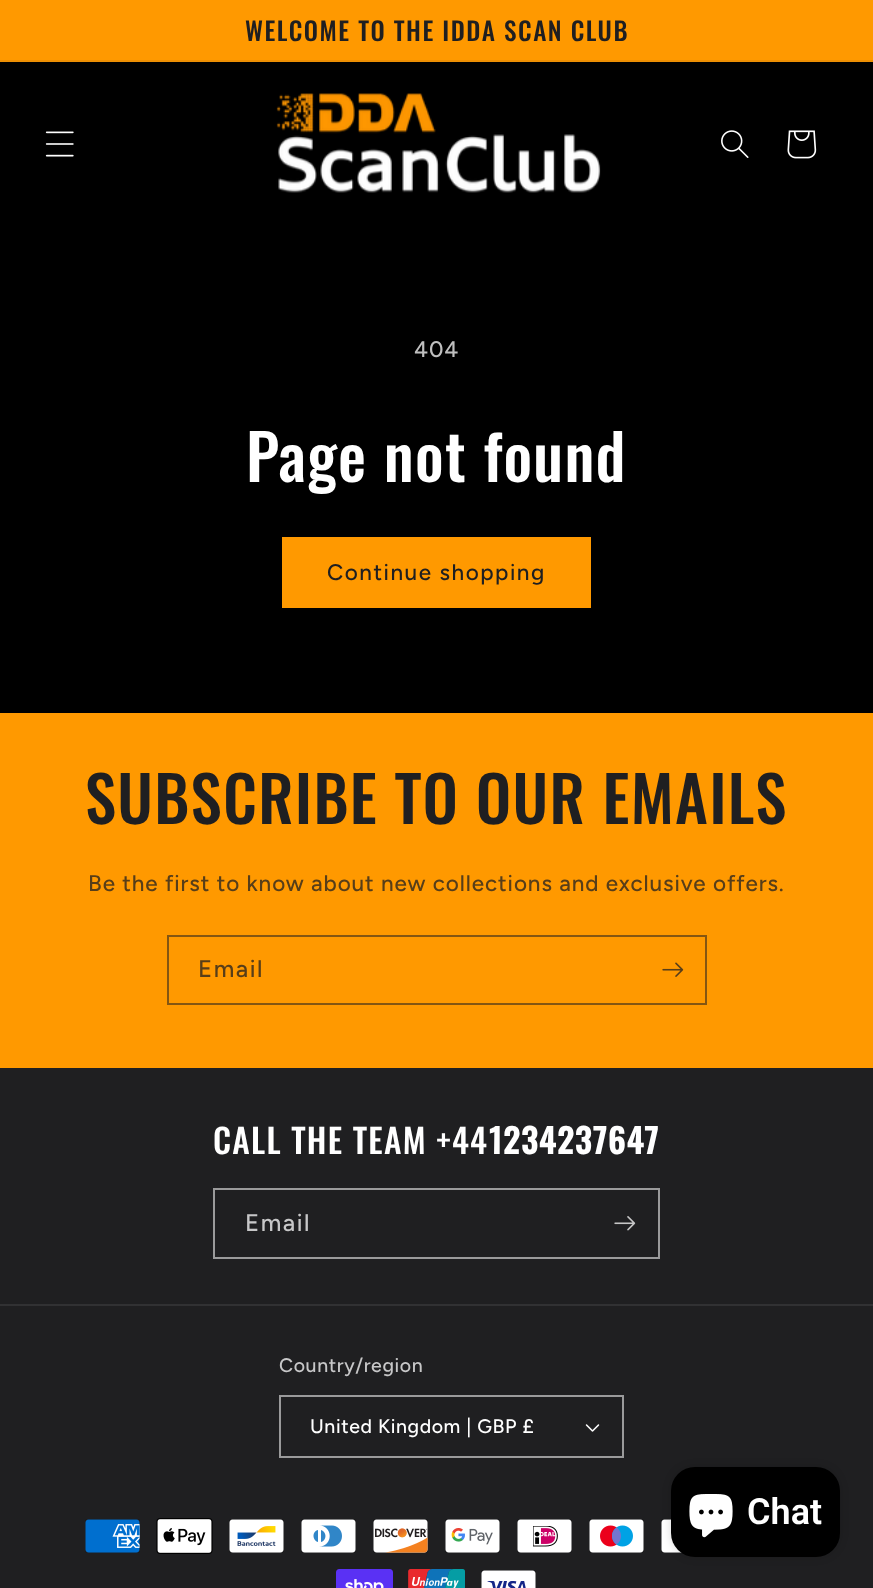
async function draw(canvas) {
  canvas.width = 873;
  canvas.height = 1588;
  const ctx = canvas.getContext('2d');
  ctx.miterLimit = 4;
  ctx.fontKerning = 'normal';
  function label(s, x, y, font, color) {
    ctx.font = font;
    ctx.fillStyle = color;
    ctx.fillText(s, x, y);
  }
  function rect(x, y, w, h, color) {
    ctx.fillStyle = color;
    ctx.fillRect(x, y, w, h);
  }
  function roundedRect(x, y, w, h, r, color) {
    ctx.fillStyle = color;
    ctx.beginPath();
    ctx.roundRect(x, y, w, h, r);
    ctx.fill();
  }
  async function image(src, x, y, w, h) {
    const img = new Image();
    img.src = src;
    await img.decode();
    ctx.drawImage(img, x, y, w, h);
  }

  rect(0, 0, 873, 1588, '#000');
  rect(0, 0, 873, 60, '#f90');
  rect(0, 60, 873, 2, '#ed8f03');
  ctx.letterSpacing = '1.5px';
  label('WELCOME TO THE IDDA SCAN CLUB', 245, 41, '500 25.25px Oswald', '#1f1f21');
  await image('assets/img1.png', 45, 131, 29, 26);
  await image('assets/img2.png', 276, 93, 325, 100);
  await image('assets/img3.png', 721, 130, 28, 28);
  await image('assets/img4.png', 787, 130, 30, 29);
  ctx.letterSpacing = '0.9px';
  label('404', 414, 357, '500 22.5px Figtree', '#bfbfbf');
  ctx.letterSpacing = '1.25px';
  label('Page not found', 246, 482, '500 63px Oswald', '#fff');
  rect(282, 537, 309, 71, '#f90');
  ctx.letterSpacing = '1.5px';
  label('Continue shopping', 327, 580, '500 22.5px Figtree', '#1f1f21');
  rect(0, 713, 873, 355, '#f90');
  ctx.letterSpacing = '1.25px';
  label('SUBSCRIBE TO OUR EMAILS', 85, 824, '500 63px Oswald', '#1f1f21');
  ctx.letterSpacing = '0.9px';
  label('Be the first to know about new collections and exclusive offers.', 88, 891, '500 22.5px Figtree', '#573e19');
  ctx.strokeStyle = '#845612';
  ctx.lineWidth = 2;
  ctx.strokeRect(168, 936, 538, 68);
  ctx.letterSpacing = '1.5px';
  label('Email', 198, 977, '500 24px Figtree', '#573e19');
  await image('assets/img5.png', 662, 962, 22, 15);
  rect(0, 1068, 873, 520, '#1f1f21');
  ctx.letterSpacing = '1.25px';
  label('CALL THE TEAM +44', 213, 1154, '500 33.5px Oswald', '#fff');
  label('1234237647', 489, 1154, 'bold 33.5px Oswald', '#fff');
  ctx.strokeStyle = '#9a9a9b';
  ctx.strokeRect(214, 1189, 445, 69);
  ctx.letterSpacing = '1.5px';
  label('Email', 245, 1231, '500 24px Figtree', '#c7c7c8');
  await image('assets/img6.png', 614, 1216, 22, 15);
  rect(0, 1304, 873, 2, '#313133');
  ctx.letterSpacing = '0.6px';
  label('Country/region', 279, 1372, '500 19.5px Figtree', '#c7c7c8');
  await image('assets/img7.png', 585, 1424, 15, 8);
  ctx.strokeRect(280, 1396, 343, 61);
  label('United Kingdom | GBP £', 310, 1433, '500 19.5px Figtree', '#fff');
  await image('assets/img8.png', 85, 1519, 55, 34);
  await image('assets/img9.png', 156, 1518, 57, 36);
  await image('assets/img10.png', 229, 1519, 55, 34);
  await image('assets/img11.png', 301, 1519, 55, 34);
  await image('assets/img12.png', 373, 1519, 55, 34);
  await image('assets/img13.png', 445, 1519, 55, 34);
  await image('assets/img14.png', 517, 1519, 55, 34);
  await image('assets/img15.png', 589, 1519, 55, 34);
  await image('assets/img16.png', 661, 1519, 21, 34);
  await image('assets/img17.png', 336, 1569, 57, 19);
  await image('assets/img18.png', 408, 1569, 57, 19);
  await image('assets/img19.png', 481, 1570, 55, 18);
  ctx.fillStyle = '#00000026';
  ctx.filter = 'blur(4px)';
  ctx.beginPath();
  ctx.roundRect(671, 1467, 169, 90, 24);
  ctx.fill();
  ctx.filter = 'none';
  roundedRect(671, 1467, 169, 90, 24, '#000');
  await image('assets/img20.png', 689, 1494, 44, 44);
  ctx.letterSpacing = '0px';
  label('Chat', 747, 1524, '600 36px Roboto', '#fff');
}

draw(document.querySelector('canvas'));
